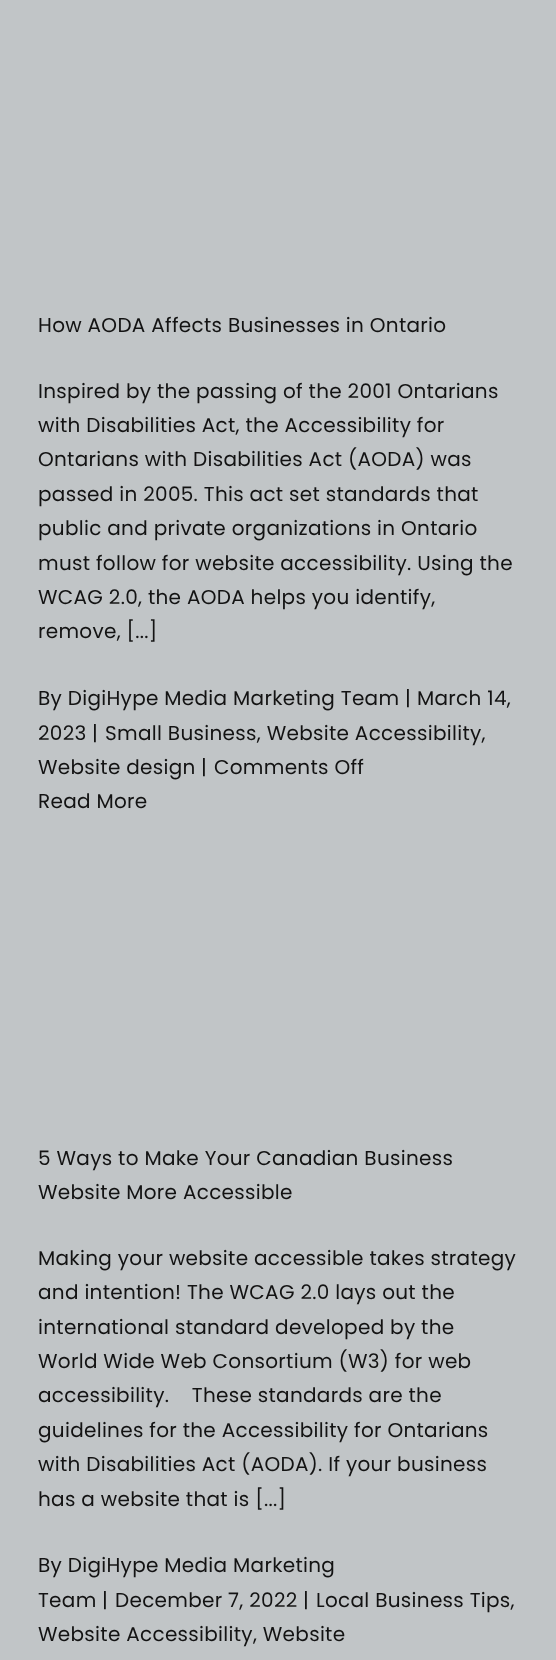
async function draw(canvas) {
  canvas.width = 556;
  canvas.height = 1660;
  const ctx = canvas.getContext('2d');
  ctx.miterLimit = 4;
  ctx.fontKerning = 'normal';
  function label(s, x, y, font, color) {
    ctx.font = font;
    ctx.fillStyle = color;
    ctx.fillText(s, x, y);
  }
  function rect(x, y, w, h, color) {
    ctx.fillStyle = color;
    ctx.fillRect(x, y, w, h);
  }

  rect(0, 0, 556, 1660, '#c1c5c7');
  ctx.letterSpacing = '0.3px';
  label('How AODA Affects Businesses in Ontario', 38, 332, '20px Poppins', '#131313');
  label('Inspired by the passing of the 2001 Ontarians', 38, 398, '20px Poppins', '#131313');
  label('with Disabilities Act, the Accessibility for', 38, 432, '20px Poppins', '#131313');
  label('Ontarians with Disabilities Act (AODA) was', 38, 466, '20px Poppins', '#131313');
  label('passed in 2005. This act set standards that', 38, 501, '20px Poppins', '#131313');
  label('public and private organizations in Ontario', 38, 535, '20px Poppins', '#131313');
  label('must follow for website accessibility. Using the', 38, 570, '20px Poppins', '#131313');
  label('WCAG 2.0, the AODA helps you identify,', 38, 604, '20px Poppins', '#131313');
  label('remove, [...]', 38, 638, '20px Poppins', '#131313');
  label('By DigiHype Media Marketing Team', 38, 705, '20px Poppins', '#131313');
  label('|', 405, 705, '20px Poppins', '#131313');
  label('March 14,', 417, 705, '20px Poppins', '#131313');
  label('2023', 38, 740, '20px Poppins', '#131313');
  label('|', 92, 740, '20px Poppins', '#131313');
  label('Small Business, Website Accessibility,', 105, 740, '20px Poppins', '#131313');
  label('Website design', 38, 774, '20px Poppins', '#131313');
  label('|', 201, 774, '20px Poppins', '#131313');
  label('Comments Off', 214, 774, '20px Poppins', '#131313');
  label('Read More', 38, 808, '20px Poppins', '#131313');
  label('5 Ways to Make Your Canadian Business', 38, 1165, '20px Poppins', '#131313');
  label('Website More Accessible', 38, 1199, '20px Poppins', '#131313');
  label('Making your website accessible takes strategy', 38, 1265, '20px Poppins', '#131313');
  label('and intention! The WCAG 2.0 lays out the', 38, 1299, '20px Poppins', '#131313');
  label('international standard developed by the', 38, 1334, '20px Poppins', '#131313');
  label('World Wide Web Consortium (W3) for web', 38, 1368, '20px Poppins', '#131313');
  label('accessibility.    These standards are the', 38, 1402, '20px Poppins', '#131313');
  label('guidelines for the Accessibility for Ontarians', 38, 1437, '20px Poppins', '#131313');
  label('with Disabilities Act (AODA). If your business', 38, 1471, '20px Poppins', '#131313');
  label('has a website that is [...]', 38, 1506, '20px Poppins', '#131313');
  label('By DigiHype Media Marketing', 38, 1572, '20px Poppins', '#131313');
  label('Team', 38, 1607, '20px Poppins', '#131313');
  label('|', 102, 1607, '20px Poppins', '#131313');
  label('December 7, 2022', 115, 1607, '20px Poppins', '#131313');
  label('|', 303, 1607, '20px Poppins', '#131313');
  label('Local Business Tips,', 316, 1607, '20px Poppins', '#131313');
  label('Website Accessibility, Website', 38, 1641, '20px Poppins', '#131313');
}

draw(document.querySelector('canvas'));
